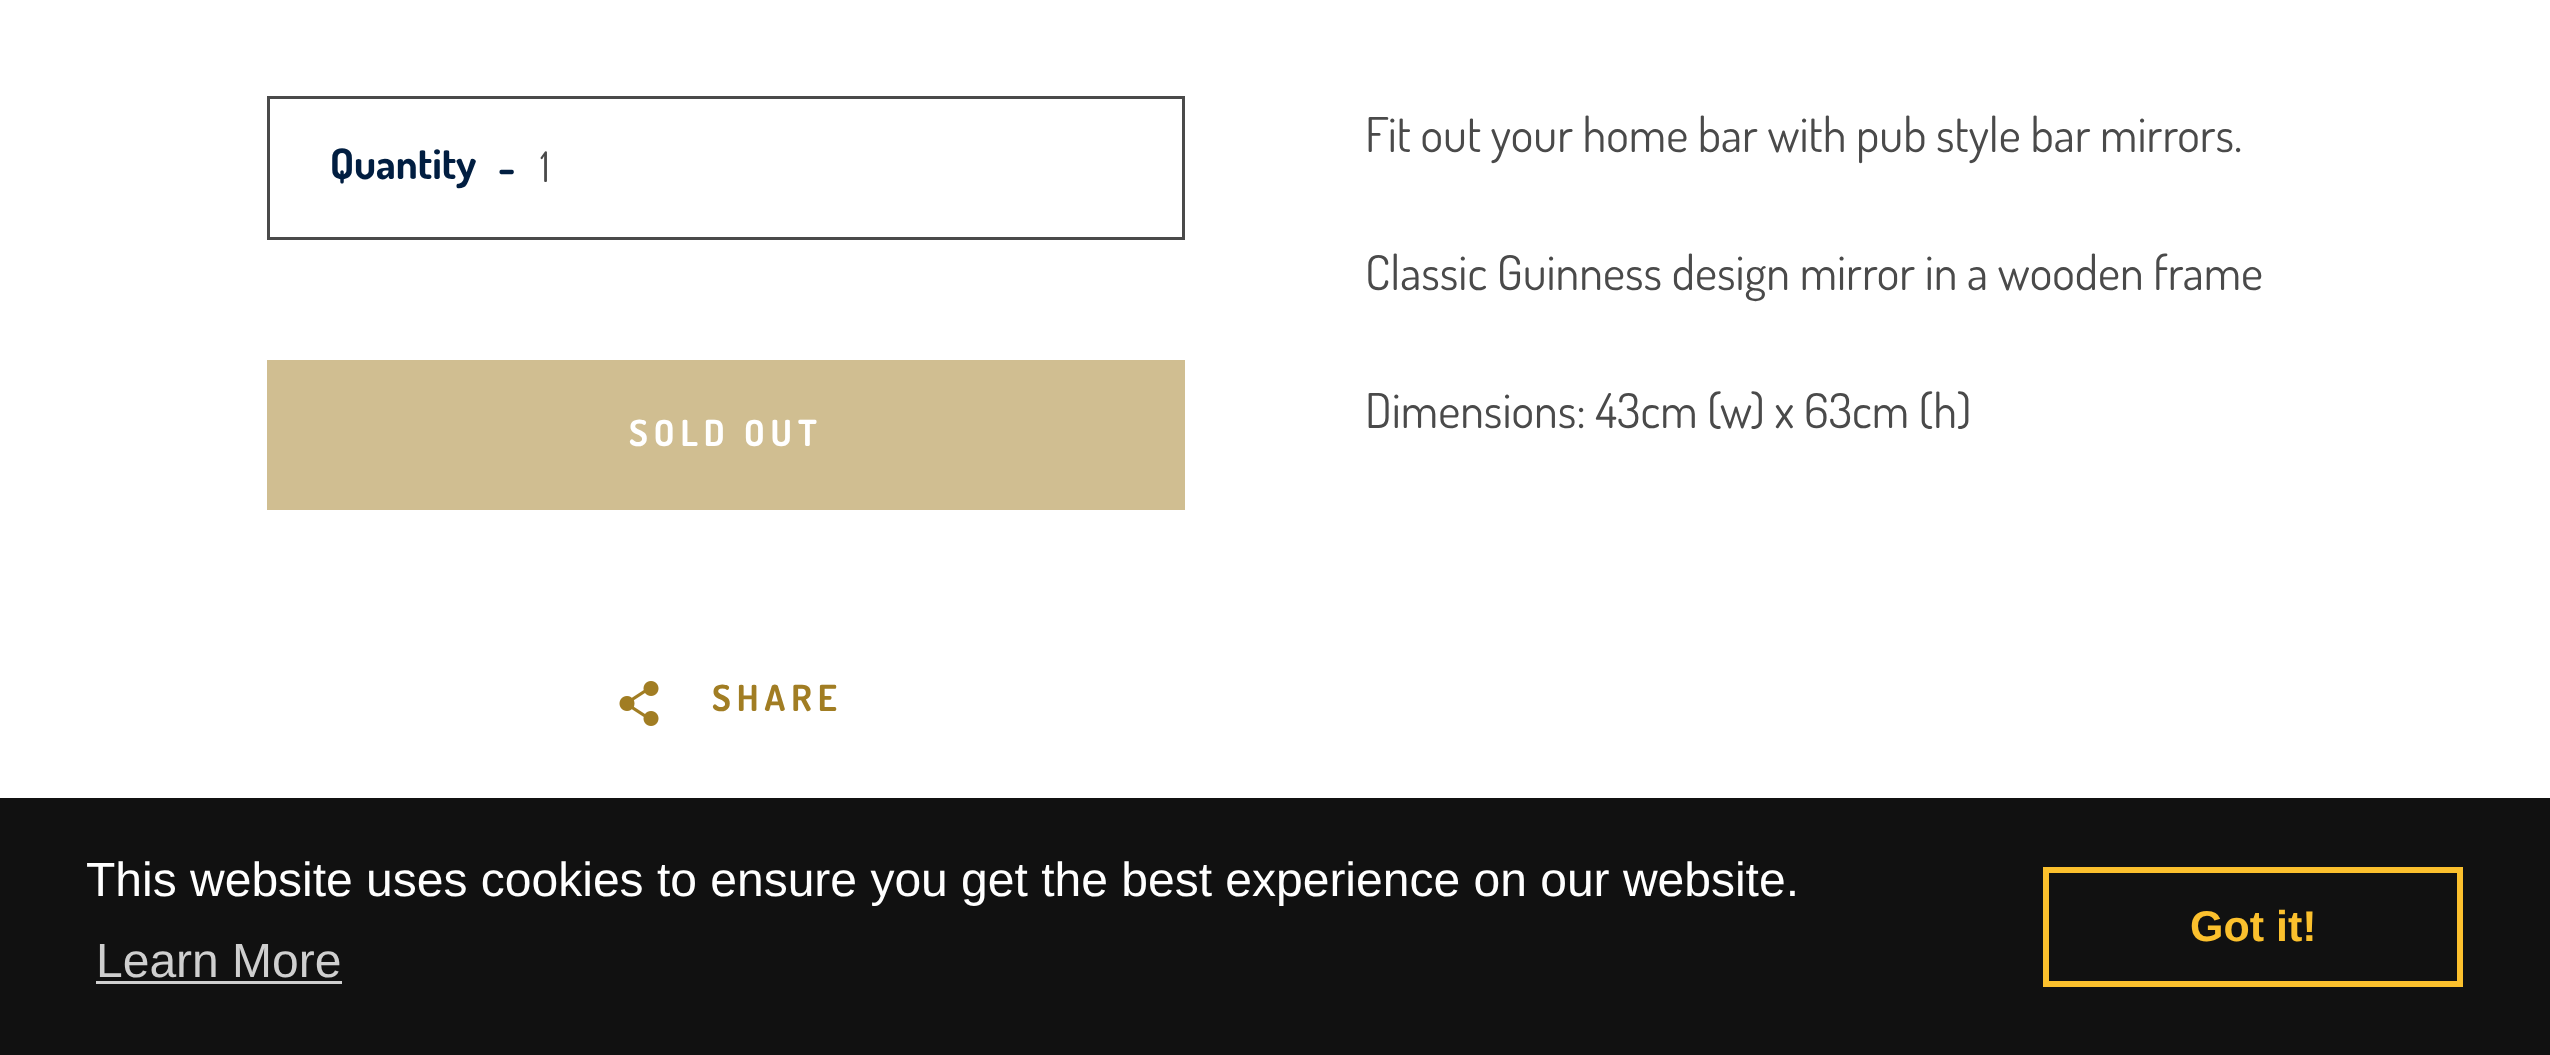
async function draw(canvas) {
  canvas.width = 2550;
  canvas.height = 1055;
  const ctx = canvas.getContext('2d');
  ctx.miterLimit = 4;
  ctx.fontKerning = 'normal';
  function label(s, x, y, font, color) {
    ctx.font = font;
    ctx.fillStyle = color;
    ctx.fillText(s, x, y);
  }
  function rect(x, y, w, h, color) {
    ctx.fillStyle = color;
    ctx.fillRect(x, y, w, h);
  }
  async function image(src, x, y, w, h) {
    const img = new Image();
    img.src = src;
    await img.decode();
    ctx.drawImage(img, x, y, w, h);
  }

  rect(0, 0, 2550, 1055, '#fff');
  ctx.strokeStyle = '#4a4a4a';
  ctx.lineWidth = 3;
  ctx.strokeRect(268.5, 97.5, 915, 141);
  label('Quantity', 330, 179, 'bold 42px Dosis', '#011e41');
  label('-', 498, 182, 'bold 42px Dosis', '#011e41');
  label('1', 540, 182, '42px Dosis', '#4a4a4a');
  rect(267, 360, 918, 150, '#d0be91');
  ctx.letterSpacing = '6px';
  label('SOLD OUT', 629, 446, 'bold 36px Dosis', '#fff');
  await image('assets/img1.png', 619, 681, 40, 45);
  label('SHARE', 712, 711, 'bold 36px Dosis', '#a17d23');
  ctx.letterSpacing = '0px';
  label('Fit out your home bar with pub style bar mirrors.', 1365, 152, '48px Dosis', '#4a4a4a');
  label('Classic Guinness design mirror in a wooden frame', 1365, 290, '48px Dosis', '#4a4a4a');
  label('Dimensions: 43cm (w) x 63cm (h)', 1365, 428, '48px Dosis', '#4a4a4a');
  rect(0, 798, 2550, 257, '#111');
  label('This website uses cookies to ensure you get the best experience on our website.', 86, 896, '48px Liberation Sans', '#fff');
  label('Learn More', 96, 977, '48px Liberation Sans', '#cfcfcf');
  rect(96, 981, 246, 3, '#cfcfcf');
  ctx.strokeStyle = '#fbc02d';
  ctx.lineWidth = 6;
  ctx.strokeRect(2046, 870, 414, 114);
  label('Got it!', 2190, 941, 'bold 43px Liberation Sans', '#fbc02d');
}

draw(document.querySelector('canvas'));
